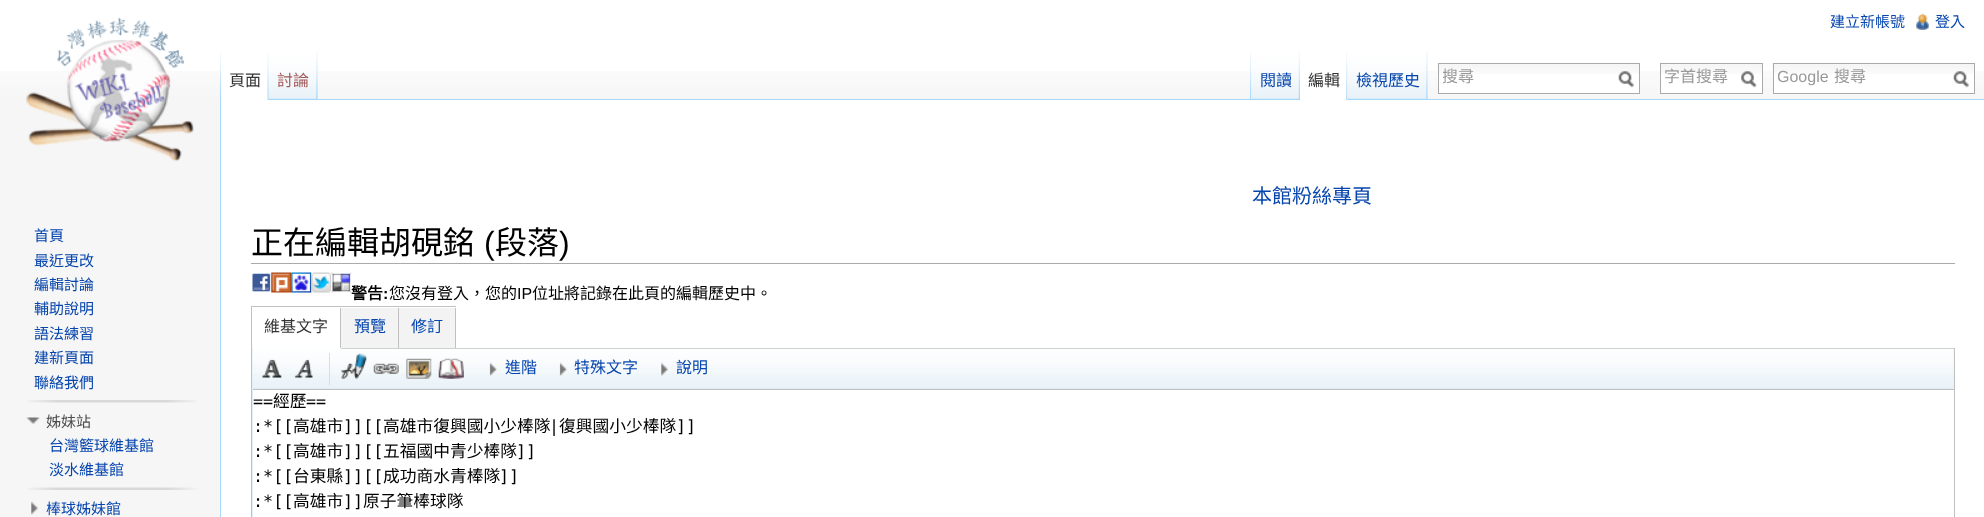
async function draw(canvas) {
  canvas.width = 1984;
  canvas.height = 517;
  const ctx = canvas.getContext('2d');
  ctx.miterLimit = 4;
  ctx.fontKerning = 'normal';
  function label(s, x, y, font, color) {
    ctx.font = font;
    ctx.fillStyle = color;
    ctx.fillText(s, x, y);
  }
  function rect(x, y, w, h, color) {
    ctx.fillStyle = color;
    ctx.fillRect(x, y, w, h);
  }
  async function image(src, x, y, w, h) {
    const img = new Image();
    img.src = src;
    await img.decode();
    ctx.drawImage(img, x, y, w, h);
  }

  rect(0, 0, 1984, 517, '#f6f6f6');
  rect(0, 0, 1984, 71, '#fff');
  await image('assets/img1.png', 0, 71, 1984, 29);
  label('建立新帳號', 1830, 27, '15px Noto Sans CJK TC', '#0645ad');
  await image('assets/img2.png', 1916, 13, 13, 17);
  label('登入', 1935, 27, '15px Noto Sans CJK TC', '#0645ad');
  await image('assets/img3.png', 220, 50, 1, 49);
  rect(221, 71, 48, 29, '#fff');
  await image('assets/img4.png', 267, 52, 2, 48);
  label('頁面', 229, 86, '16px Noto Sans CJK TC', '#333');
  rect(317, 50, 1, 50, '#f3f3f3');
  await image('assets/img5.png', 268, 50, 50, 50);
  await image('assets/img6.png', 316, 52, 2, 48);
  label('討論', 277, 86, '16px Noto Sans CJK TC', '#a55858');
  await image('assets/img7.png', 1250, 50, 2, 49);
  rect(318, 99, 1666, 1, '#a7d7f9');
  await image('assets/img8.png', 1251, 50, 49, 50);
  await image('assets/img9.png', 1298, 50, 2, 49);
  label('閱讀', 1260, 86, '16px Noto Sans CJK TC', '#0645ad');
  rect(1300, 71, 48, 29, '#fff');
  await image('assets/img10.png', 1346, 52, 2, 48);
  label('編輯', 1308, 86, '16px Noto Sans CJK TC', '#333');
  rect(1427, 50, 1, 50, '#f3f3f3');
  await image('assets/img11.png', 1347, 50, 81, 50);
  await image('assets/img6.png', 1426, 52, 2, 48);
  label('檢視歷史', 1356, 86, '16px Noto Sans CJK TC', '#0645ad');
  rect(1439, 74, 200, 19, '#fff');
  await image('assets/img12.png', 1437, 64, 202, 10);
  ctx.strokeStyle = '#aaa';
  ctx.strokeRect(1438.5, 63.5, 201, 30);
  ctx.save();
  ctx.beginPath();
  ctx.rect(1443, 64, 180, 24);
  ctx.clip();
  label('搜尋', 1442, 82, '16px Noto Sans CJK TC', '#999');
  ctx.restore();
  await image('assets/img13.png', 1618, 71, 16, 17);
  rect(1661, 74, 101, 19, '#fff');
  await image('assets/img14.png', 1661, 64, 101, 10);
  ctx.strokeRect(1660.5, 63.5, 102, 30);
  label('字首搜尋', 1664, 82, '16px Noto Sans CJK TC', '#999');
  await image('assets/img15.png', 1741, 71, 16, 17);
  rect(1774, 74, 200, 19, '#fff');
  await image('assets/img12.png', 1772, 64, 202, 10);
  ctx.strokeRect(1773.5, 63.5, 201, 30);
  ctx.save();
  ctx.beginPath();
  ctx.rect(1778, 64, 180, 24);
  ctx.clip();
  label('Google', 1777, 82, '16px Liberation Sans', '#999');
  ctx.restore();
  label('搜尋', 1834, 82, '16px Noto Sans CJK TC', '#999');
  await image('assets/img13.png', 1953, 71, 16, 17);
  await image('assets/img16.png', 26, 17, 168, 145);
  label('首頁', 34, 241, '15px Noto Sans CJK TC', '#0645ad');
  label('最近更改', 34, 266, '15px Noto Sans CJK TC', '#0645ad');
  label('編輯討論', 34, 290, '15px Noto Sans CJK TC', '#0645ad');
  label('輔助說明', 34, 314, '15px Noto Sans CJK TC', '#0645ad');
  label('語法練習', 34, 339, '15px Noto Sans CJK TC', '#0645ad');
  label('建新頁面', 34, 363, '15px Noto Sans CJK TC', '#0645ad');
  label('聯絡我們', 34, 388, '15px Noto Sans CJK TC', '#0645ad');
  await image('assets/img17.png', 27, 400, 170, 3);
  await image('assets/img18.png', 26, 417, 14, 7);
  label('姊妹站', 46, 427, '15px Noto Sans CJK TC', '#4d4d4d');
  label('台灣籃球維基館', 49, 451, '15px Noto Sans CJK TC', '#0645ad');
  label('淡水維基館', 49, 475, '15px Noto Sans CJK TC', '#0645ad');
  await image('assets/img19.png', 27, 487, 170, 3);
  await image('assets/img20.png', 31, 501, 7, 14);
  label('棒球姊妹館', 46, 514, '15px Noto Sans CJK TC', '#0645ad');
  rect(221, 100, 1763, 417, '#fff');
  rect(220, 99, 1, 418, '#a7d7f9');
  label('本館粉絲專頁', 1252, 203, '20px Noto Sans CJK TC', '#0645ad');
  rect(251, 263, 1704, 1, '#aaa');
  label('正在編輯胡硯銘', 251, 254, '32px Noto Sans CJK TC', '#000');
  label('(', 484, 254, '32px Liberation Sans', '#000');
  label('段落', 495, 254, '32px Noto Sans CJK TC', '#000');
  label(')', 559, 254, '32px Liberation Sans', '#000');
  await image('assets/img21.png', 252, 273, 19, 19);
  await image('assets/img22.png', 271, 272, 21, 21);
  await image('assets/img23.png', 291, 272, 21, 21);
  await image('assets/img24.png', 311, 272, 21, 21);
  await image('assets/img25.png', 331, 272, 21, 21);
  label('警告', 351, 299, 'bold 16px Noto Sans CJK TC', '#000');
  label(':', 383, 299, 'bold 16px Liberation Sans', '#000');
  label('您沒有登入，您的', 389, 299, '16px Noto Sans CJK TC', '#000');
  label('IP', 517, 299, '16px Liberation Sans', '#000');
  label('位址將記錄在此頁的編輯歷史中。', 532, 299, '16px Noto Sans CJK TC', '#000');
  rect(252, 348, 1702, 169, '#e0eef7');
  ctx.strokeStyle = '#c0c0c0';
  ctx.strokeRect(251.5, 306.5, 1703, 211);
  rect(456, 306, 1483, 1, '#fff');
  rect(456, 348, 1498, 1, '#c0c0c0');
  rect(340, 308, 1, 41, '#c0c0c0');
  rect(253, 348, 88, 1, '#fff');
  label('維基文字', 264, 332, '16px Noto Sans CJK TC', '#333');
  rect(341, 308, 57, 40, '#f3f3f3');
  rect(398, 308, 1, 41, '#c0c0c0');
  rect(341, 348, 58, 1, '#c0c0c0');
  label('預覽', 354, 332, '16px Noto Sans CJK TC', '#0645ad');
  rect(399, 308, 56, 40, '#f3f3f3');
  rect(455, 308, 1, 41, '#c0c0c0');
  rect(399, 348, 57, 1, '#c0c0c0');
  label('修訂', 411, 332, '16px Noto Sans CJK TC', '#0645ad');
  rect(1939, 306, 16, 42, '#fff');
  rect(253, 389, 1701, 1, '#c0c0c0');
  await image('assets/img26.png', 252, 348, 1702, 41);
  rect(329, 353, 1, 32, '#ddd');
  await image('assets/img27.png', 262, 359, 20, 19);
  await image('assets/img28.png', 294, 359, 19, 19);
  await image('assets/img29.png', 341, 353, 26, 26);
  await image('assets/img30.png', 373, 363, 26, 11);
  await image('assets/img31.png', 406, 358, 26, 21);
  await image('assets/img32.png', 438, 358, 26, 21);
  await image('assets/img33.png', 489, 362, 8, 15);
  label('進階', 505, 373, '16px Noto Sans CJK TC', '#0645ad');
  await image('assets/img34.png', 559, 362, 8, 15);
  label('特殊文字', 574, 373, '16px Noto Sans CJK TC', '#0645ad');
  await image('assets/img35.png', 661, 362, 7, 15);
  label('說明', 676, 373, '16px Noto Sans CJK TC', '#0645ad');
  rect(253, 390, 1701, 127, '#fff');
  label('==', 253, 407, '16.75px DejaVu Sans Mono', '#000');
  label('經歷', 273, 407, '16.75px Noto Sans CJK TC', '#000');
  label('==', 306, 407, '16.75px DejaVu Sans Mono', '#000');
  label(':*[[', 253, 432, '16.75px DejaVu Sans Mono', '#000');
  label('高雄市', 293, 432, '16.75px Noto Sans CJK TC', '#000');
  label(']][[', 343, 432, '16.75px DejaVu Sans Mono', '#000');
  label('高雄市復興國小少棒隊', 383, 432, '16.75px Noto Sans CJK TC', '#000');
  label('|', 549, 432, '16.75px DejaVu Sans Mono', '#000');
  label('復興國小少棒隊', 559, 432, '16.75px Noto Sans CJK TC', '#000');
  label(']]', 676, 432, '16.75px DejaVu Sans Mono', '#000');
  label(':*[[', 253, 457, '16.75px DejaVu Sans Mono', '#000');
  label('高雄市', 293, 457, '16.75px Noto Sans CJK TC', '#000');
  label(']][[', 343, 457, '16.75px DejaVu Sans Mono', '#000');
  label('五福國中青少棒隊', 383, 457, '16.75px Noto Sans CJK TC', '#000');
  label(']]', 516, 457, '16.75px DejaVu Sans Mono', '#000');
  label(':*[[', 253, 482, '16.75px DejaVu Sans Mono', '#000');
  label('台東縣', 293, 482, '16.75px Noto Sans CJK TC', '#000');
  label(']][[', 343, 482, '16.75px DejaVu Sans Mono', '#000');
  label('成功商水青棒隊', 383, 482, '16.75px Noto Sans CJK TC', '#000');
  label(']]', 499, 482, '16.75px DejaVu Sans Mono', '#000');
  label(':*[[', 253, 507, '16.75px DejaVu Sans Mono', '#000');
  label('高雄市', 293, 507, '16.75px Noto Sans CJK TC', '#000');
  label(']]', 343, 507, '16.75px DejaVu Sans Mono', '#000');
  label('原子筆棒球隊', 363, 507, '16.75px Noto Sans CJK TC', '#000');
}

draw(document.querySelector('canvas'));
